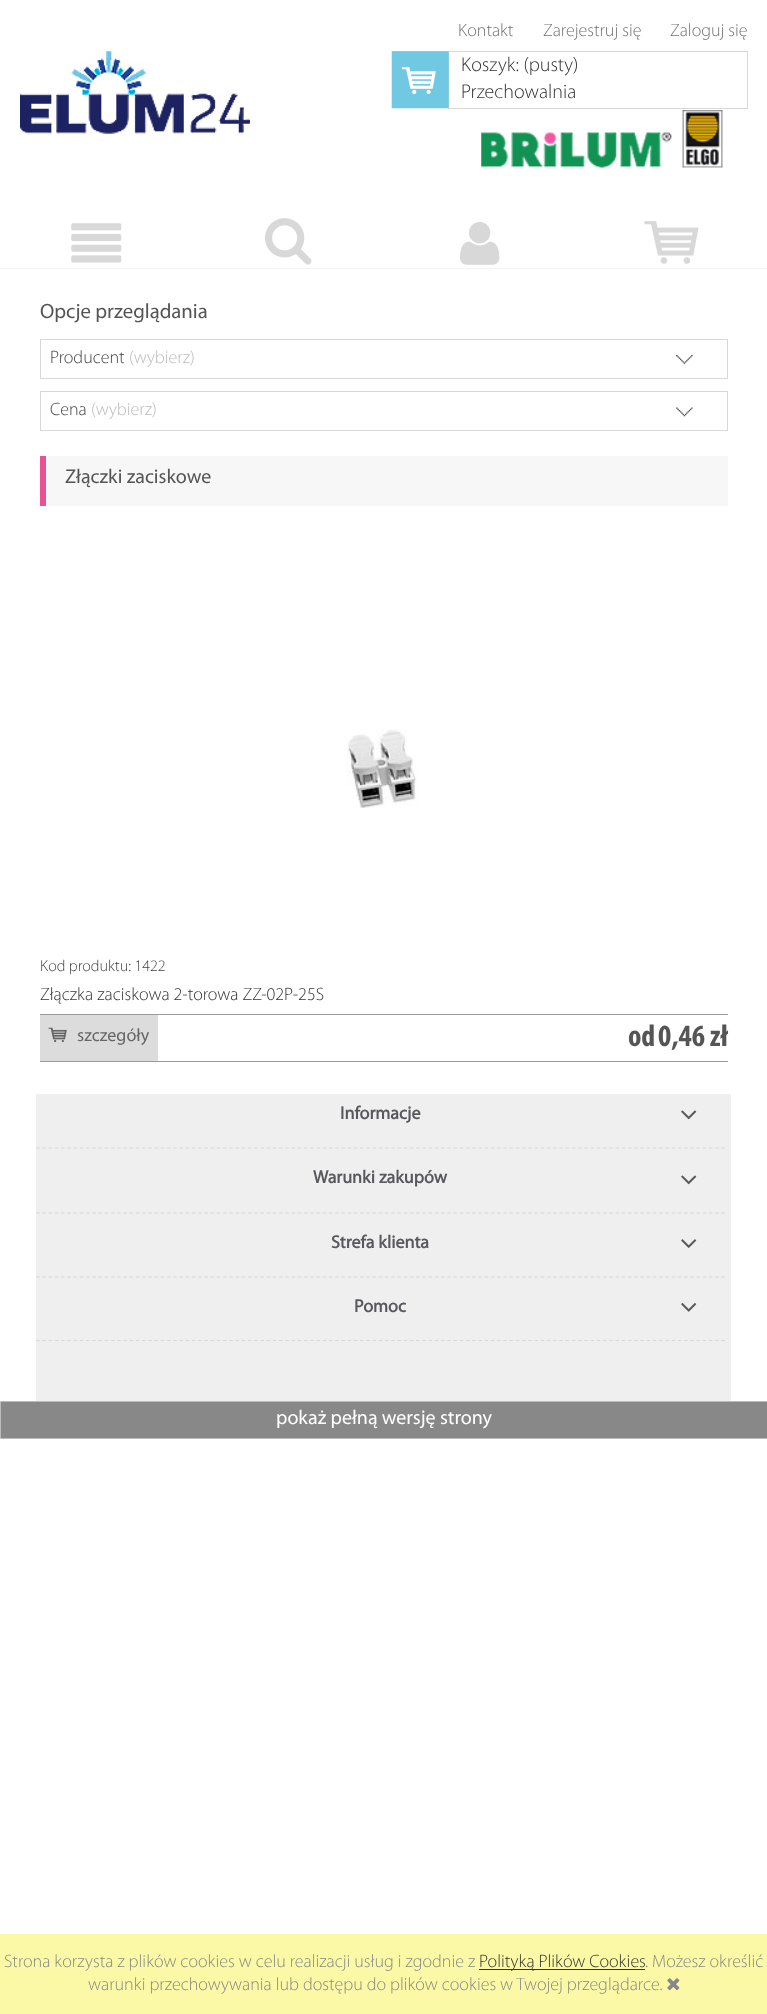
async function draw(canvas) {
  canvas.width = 767;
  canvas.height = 2014;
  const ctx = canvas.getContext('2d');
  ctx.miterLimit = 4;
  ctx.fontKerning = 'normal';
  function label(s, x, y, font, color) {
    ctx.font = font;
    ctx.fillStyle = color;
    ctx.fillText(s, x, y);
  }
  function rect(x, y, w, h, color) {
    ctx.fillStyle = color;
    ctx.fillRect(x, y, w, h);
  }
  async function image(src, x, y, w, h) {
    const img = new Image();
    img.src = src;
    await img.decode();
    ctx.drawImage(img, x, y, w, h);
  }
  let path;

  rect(0, 0, 767, 2014, '#fff');
  label('Kontakt', 458, 36, '300 18px Myriad', '#737373');
  label('Zarejestruj się', 543, 36, '300 18px Myriad', '#737373');
  label('Zaloguj się', 670, 36, '300 18px Myriad', '#737373');
  await image('assets/img1.png', 20, 51, 230, 83);
  ctx.strokeStyle = '#d8d8d8';
  ctx.strokeRect(448.5, 51.5, 299, 57);
  await image('assets/img2.png', 391, 51, 58, 58);
  label('Koszyk: (pusty)', 461, 71, '300 20px Myriad', '#333');
  label('Przechowalnia', 461, 98, '300 20px Myriad', '#333');
  await image('assets/img3.png', 481, 110, 242, 58);
  rect(0, 268, 767, 1, '#f2f2f2');
  await image('assets/img4.png', 71, 223, 51, 40);
  await image('assets/img5.png', 265, 218, 47, 47);
  await image('assets/img6.png', 460, 222, 40, 43);
  await image('assets/img7.png', 644, 221, 55, 43);
  label('Opcje przeglądania', 40, 318, '20.75px Myriad', '#555');
  await image('assets/img8.png', 676, 355, 17, 9);
  ctx.strokeRect(40.5, 339.5, 687, 39);
  label('Producent', 50, 363, '300 18px Myriad', '#444');
  label('(wybierz)', 129, 363, '300 18px Myriad', '#bbb');
  await image('assets/img9.png', 676, 407, 17, 10);
  ctx.strokeRect(40.5, 391.5, 687, 39);
  label('Cena', 50, 415, '300 18px Myriad', '#444');
  label('(wybierz)', 91, 415, '300 18px Myriad', '#bbb');
  rect(46, 456, 682, 50, '#f7f7f7');
  rect(40, 456, 6, 50, '#e85295');
  label('Złączki zaciskowe', 65, 483, '20px Myriad', '#555');
  await image('assets/img10.png', 347, 729, 70, 79);
  label('Kod produktu: 1422', 40, 971, '300 16px Myriad', '#444');
  label('Złączka zaciskowa 2-torowa ZZ-02P-25S', 40, 1000, '300 18px Myriad', '#333');
  rect(40, 1014, 688, 1, '#999');
  rect(40, 1061, 688, 1, '#999');
  rect(40, 1015, 118, 46, '#dcdcdc');
  await image('assets/img11.png', 48, 1027, 19, 16);
  label('szczegóły', 77, 1041, '18px Myriad', '#666');
  label('od', 628, 1046, 'bold 31px Myriad', '#555');
  label('0,46 zł', 658, 1046, 'bold 31px Myriad', '#555');
  rect(36, 1094, 695, 307, '#efefef');
  path = new Path2D('M36 1148H725');
  ctx.lineWidth = 1.2;
  ctx.setLineDash([3.75, 2.48]);
  ctx.stroke(path);
  label('Informacje', 340, 1119, 'bold 18px "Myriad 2"', '#58585d');
  await image('assets/img12.png', 681, 1110, 16, 10);
  path = new Path2D('M36 1213H725');
  ctx.stroke(path);
  label('Warunki zakupów', 313, 1183, 'bold 18px "Myriad 2"', '#58585d');
  await image('assets/img12.png', 681, 1175, 16, 10);
  path = new Path2D('M36 1277H725');
  ctx.stroke(path);
  label('Strefa klienta', 331, 1248, 'bold 18px "Myriad 2"', '#58585d');
  await image('assets/img13.png', 681, 1239, 16, 9);
  path = new Path2D('M36 1340.5H725');
  ctx.stroke(path);
  label('Pomoc', 354, 1312, 'bold 18px "Myriad 2"', '#58585d');
  await image('assets/img14.png', 681, 1303, 16, 9);
  ctx.fillStyle = '#888';
  ctx.beginPath();
  ctx.rect(0.5, 1401.5, 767, 37);
  ctx.fill();
  ctx.strokeStyle = '#bbb';
  ctx.lineWidth = 1;
  ctx.setLineDash([]);
  ctx.stroke();
  label('pokaż pełną wersję strony', 276, 1424, '20px Myriad', '#fff');
  rect(0, 1934, 767, 80, '#fcf9a6');
  label('Strona korzysta z plików cookies w celu realizacji usług i zgodnie z', 4, 1967, '300 18px Myriad', '#888');
  rect(479, 1969, 166, 1, '#333');
  label('Polityką Plików Cookies', 479, 1967, '300 18px Myriad', '#333');
  label('. Możesz określić', 645, 1967, '300 18px Myriad', '#888');
  label('warunki przechowywania lub dostępu do plików cookies w Twojej przeglądarce.', 88, 1990, '300 18px Myriad', '#888');
  await image('assets/img15.png', 667, 1978, 13, 13);
}

draw(document.querySelector('canvas'));
